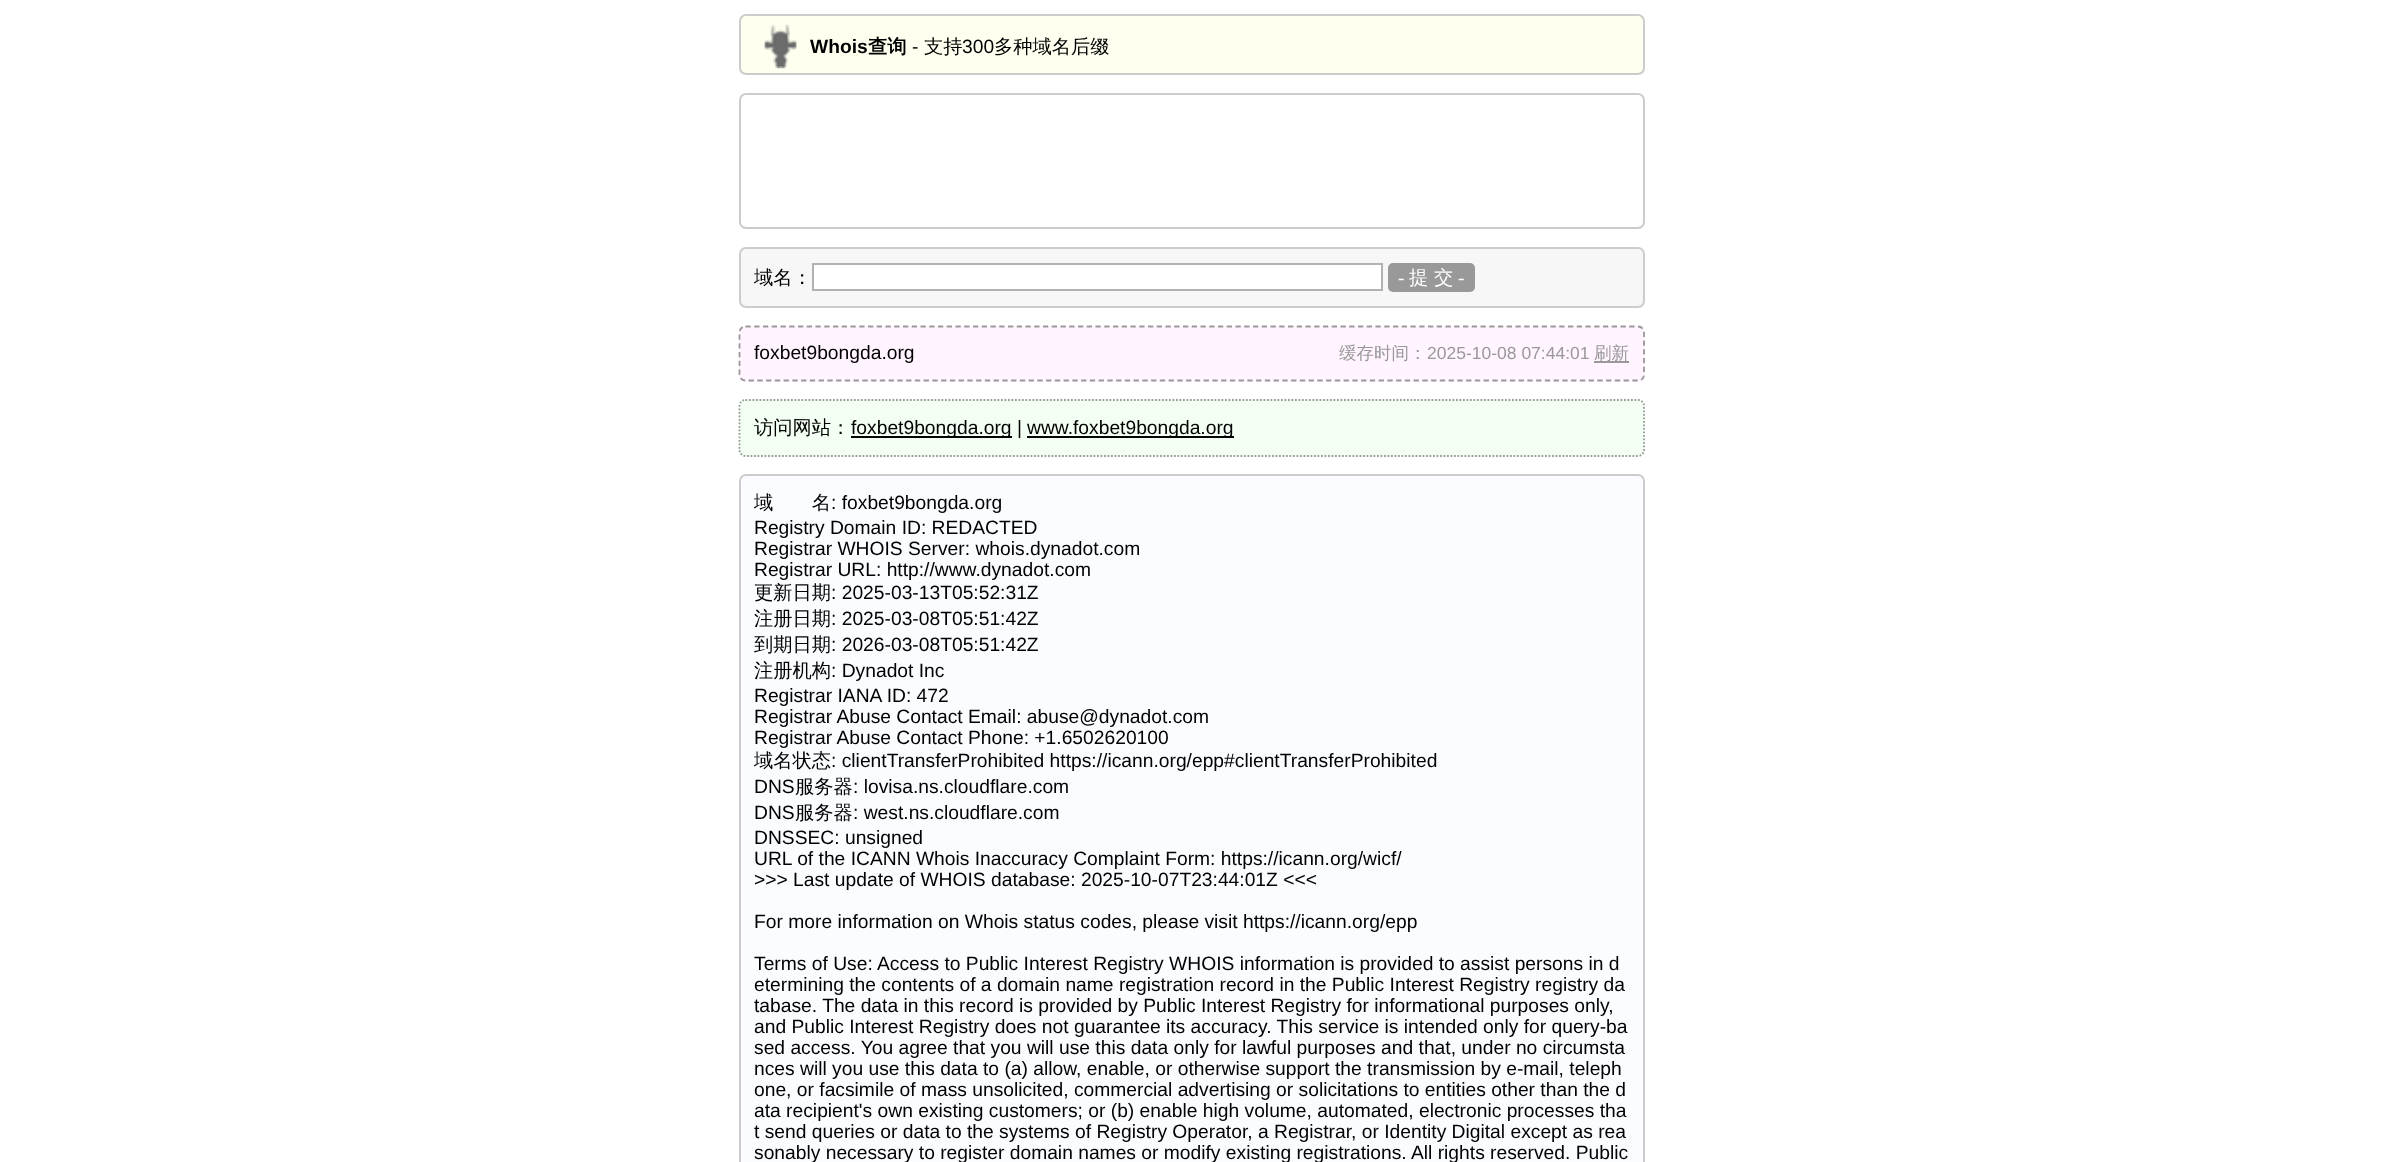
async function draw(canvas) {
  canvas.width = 2383;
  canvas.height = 1162;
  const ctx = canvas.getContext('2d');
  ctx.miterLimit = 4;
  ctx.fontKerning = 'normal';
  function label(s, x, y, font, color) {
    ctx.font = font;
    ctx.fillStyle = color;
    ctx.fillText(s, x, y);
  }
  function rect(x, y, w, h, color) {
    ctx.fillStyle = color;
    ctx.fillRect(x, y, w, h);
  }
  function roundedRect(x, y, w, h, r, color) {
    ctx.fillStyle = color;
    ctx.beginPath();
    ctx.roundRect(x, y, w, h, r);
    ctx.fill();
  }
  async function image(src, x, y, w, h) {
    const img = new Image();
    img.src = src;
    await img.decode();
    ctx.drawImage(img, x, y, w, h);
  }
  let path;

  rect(0, 0, 2383, 1162, '#fff');
  roundedRect(739, 14, 906, 61, 7, '#ffffef');
  await image('assets/img1.png', 764, 24, 33, 45);
  ctx.beginPath();
  ctx.roundRect(740, 15, 904, 59, 6);
  ctx.strokeStyle = '#ccc';
  ctx.lineWidth = 2;
  ctx.stroke();
  label('Whois', 810, 53, 'bold 19.25px Liberation Sans', '#000');
  label('查询', 868, 53, 'bold 19.25px WenQuanYi Zen Hei', '#000');
  label('-', 912, 53, '19.25px Liberation Sans', '#000');
  label('支持', 924, 53, '500 19.25px WenQuanYi Zen Hei', '#000');
  label('300', 962, 53, '19.25px Liberation Sans', '#000');
  label('多种域名后缀', 994, 53, '500 19.25px WenQuanYi Zen Hei', '#000');
  ctx.beginPath();
  ctx.roundRect(740, 94, 904, 134, 6);
  ctx.stroke();
  ctx.fillStyle = '#f7f7f7';
  ctx.beginPath();
  ctx.roundRect(740, 248, 904, 59, 6);
  ctx.fill();
  ctx.stroke();
  label('域名：', 754, 284, '500 19.25px WenQuanYi Zen Hei', '#000');
  ctx.fillStyle = '#fff';
  ctx.beginPath();
  ctx.rect(813, 264, 569, 26);
  ctx.fill();
  ctx.strokeStyle = '#b2b2b2';
  ctx.stroke();
  roundedRect(1388, 263, 87, 29, 5, '#999');
  label('-', 1398, 284, '19.25px Liberation Serif', '#fff');
  label('提 交', 1409, 284, '500 19.25px WenQuanYi Zen Hei', '#fff');
  label('-', 1458, 284, '19.25px Liberation Serif', '#fff');
  roundedRect(739, 326, 906, 56, 7, '#fff4ff');
  path = new Path2D('M745.5 326.5H1638C1641.5 326.5 1644 329 1644 332.5V374.5C1644 378 1641.5 380.5 1638 380.5H745.5C742 380.5 739.5 378 739.5 374.5V332.5C739.5 329 742 326.5 745.5 326.5Z');
  ctx.strokeStyle = '#999';
  ctx.lineWidth = 1.8;
  ctx.setLineDash([5.25, 3.5]);
  ctx.stroke(path);
  label('foxbet9bongda.org', 754, 359, '19.25px Liberation Sans', '#000');
  label('缓存时间：', 1339, 359, '500 17.5px WenQuanYi Zen Hei', '#999');
  label('2025-10-08 07:44:01', 1427, 359, '17.5px Liberation Sans', '#999');
  rect(1594, 361, 35, 2, '#999');
  label('刷新', 1594, 359, '500 17.5px WenQuanYi Zen Hei', '#999');
  roundedRect(739, 399, 906, 58, 7, '#f4fff4');
  path = new Path2D('M745.5 400H1638C1641.5 400 1644 402.5 1644 406V450C1644 453 1641.5 456 1638 456H745.5C742 456 739.5 453 739.5 450V406C739.5 402.5 742 400 745.5 400Z');
  ctx.setLineDash([1.75, 1.75]);
  ctx.stroke(path);
  label('访问网站：', 754, 434, '500 19.25px WenQuanYi Zen Hei', '#000');
  rect(851, 436, 161, 2, '#000');
  label('foxbet9bongda.org |', 851, 434, '19.25px Liberation Sans', '#000');
  rect(1027, 436, 207, 2, '#000');
  label('www.foxbet9bongda.org', 1027, 434, '19.25px Liberation Sans', '#000');
  ctx.fillStyle = '#fafcff';
  ctx.beginPath();
  ctx.roundRect(740, 475, 904, 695, 6);
  ctx.fill();
  ctx.strokeStyle = '#ccc';
  ctx.lineWidth = 2;
  ctx.setLineDash([]);
  ctx.stroke();
  label('域　　名', 754, 509, '500 19.25px WenQuanYi Zen Hei', '#000');
  label(': foxbet9bongda.org', 831, 509, '19.25px Liberation Sans', '#000');
  label('Registry Domain ID: REDACTED', 754, 534, '19.25px Liberation Sans', '#000');
  label('Registrar WHOIS Server: whois.dynadot.com', 754, 555, '19.25px Liberation Sans', '#000');
  label('Registrar URL: http://www.dynadot.com', 754, 576, '19.25px Liberation Sans', '#000');
  label('更新日期', 754, 599, '500 19.25px WenQuanYi Zen Hei', '#000');
  label(': 2025-03-13T05:52:31Z', 831, 599, '19.25px Liberation Sans', '#000');
  label('注册日期', 754, 625, '500 19.25px WenQuanYi Zen Hei', '#000');
  label(': 2025-03-08T05:51:42Z', 831, 625, '19.25px Liberation Sans', '#000');
  label('到期日期', 754, 651, '500 19.25px WenQuanYi Zen Hei', '#000');
  label(': 2026-03-08T05:51:42Z', 831, 651, '19.25px Liberation Sans', '#000');
  label('注册机构', 754, 677, '500 19.25px WenQuanYi Zen Hei', '#000');
  label(': Dynadot Inc', 831, 677, '19.25px Liberation Sans', '#000');
  label('Registrar IANA ID: 472', 754, 702, '19.25px Liberation Sans', '#000');
  label('Registrar Abuse Contact Email: abuse@dynadot.com', 754, 723, '19.25px Liberation Sans', '#000');
  label('Registrar Abuse Contact Phone: +1.6502620100', 754, 744, '19.25px Liberation Sans', '#000');
  label('域名状态', 754, 767, '500 19.25px WenQuanYi Zen Hei', '#000');
  label(': clientTransferProhibited https://icann.org/epp#clientTransferProhibited', 831, 767, '19.25px Liberation Sans', '#000');
  label('DNS', 754, 793, '19.25px Liberation Sans', '#000');
  label('服务器', 795, 793, '500 19.25px WenQuanYi Zen Hei', '#000');
  label(': lovisa.ns.cloudflare.com', 853, 793, '19.25px Liberation Sans', '#000');
  label('DNS', 754, 819, '19.25px Liberation Sans', '#000');
  label('服务器', 795, 819, '500 19.25px WenQuanYi Zen Hei', '#000');
  label(': west.ns.cloudflare.com', 853, 819, '19.25px Liberation Sans', '#000');
  label('DNSSEC: unsigned', 754, 844, '19.25px Liberation Sans', '#000');
  label('URL of the ICANN Whois Inaccuracy Complaint Form: https://icann.org/wicf/', 754, 865, '19.25px Liberation Sans', '#000');
  label('>>> Last update of WHOIS database: 2025-10-07T23:44:01Z <<<', 754, 886, '19.25px Liberation Sans', '#000');
  label('For more information on Whois status codes, please visit https://icann.org/epp', 754, 928, '19.25px Liberation Sans', '#000');
  label('Terms of Use: Access to Public Interest Registry WHOIS information is provided to assist persons in d', 754, 970, '19.25px Liberation Sans', '#000');
  label('etermining the contents of a domain name registration record in the Public Interest Registry registry da', 754, 991, '19.25px Liberation Sans', '#000');
  label('tabase. The data in this record is provided by Public Interest Registry for informational purposes only,', 754, 1012, '19.25px Liberation Sans', '#000');
  label('and Public Interest Registry does not guarantee its accuracy. This service is intended only for query-ba', 754, 1033, '19.25px Liberation Sans', '#000');
  label('sed access. You agree that you will use this data only for lawful purposes and that, under no circumsta', 754, 1054, '19.25px Liberation Sans', '#000');
  label('nces will you use this data to (a) allow, enable, or otherwise support the transmission by e-mail, teleph', 754, 1075, '19.25px Liberation Sans', '#000');
  label('one, or facsimile of mass unsolicited, commercial advertising or solicitations to entities other than the d', 754, 1096, '19.25px Liberation Sans', '#000');
  label('ata recipient\'s own existing customers; or (b) enable high volume, automated, electronic processes tha', 754, 1117, '19.25px Liberation Sans', '#000');
  label('t send queries or data to the systems of Registry Operator, a Registrar, or Identity Digital except as rea', 754, 1138, '19.25px Liberation Sans', '#000');
  label('sonably necessary to register domain names or modify existing registrations. All rights reserved. Public', 754, 1159, '19.25px Liberation Sans', '#000');
}

draw(document.querySelector('canvas'));
